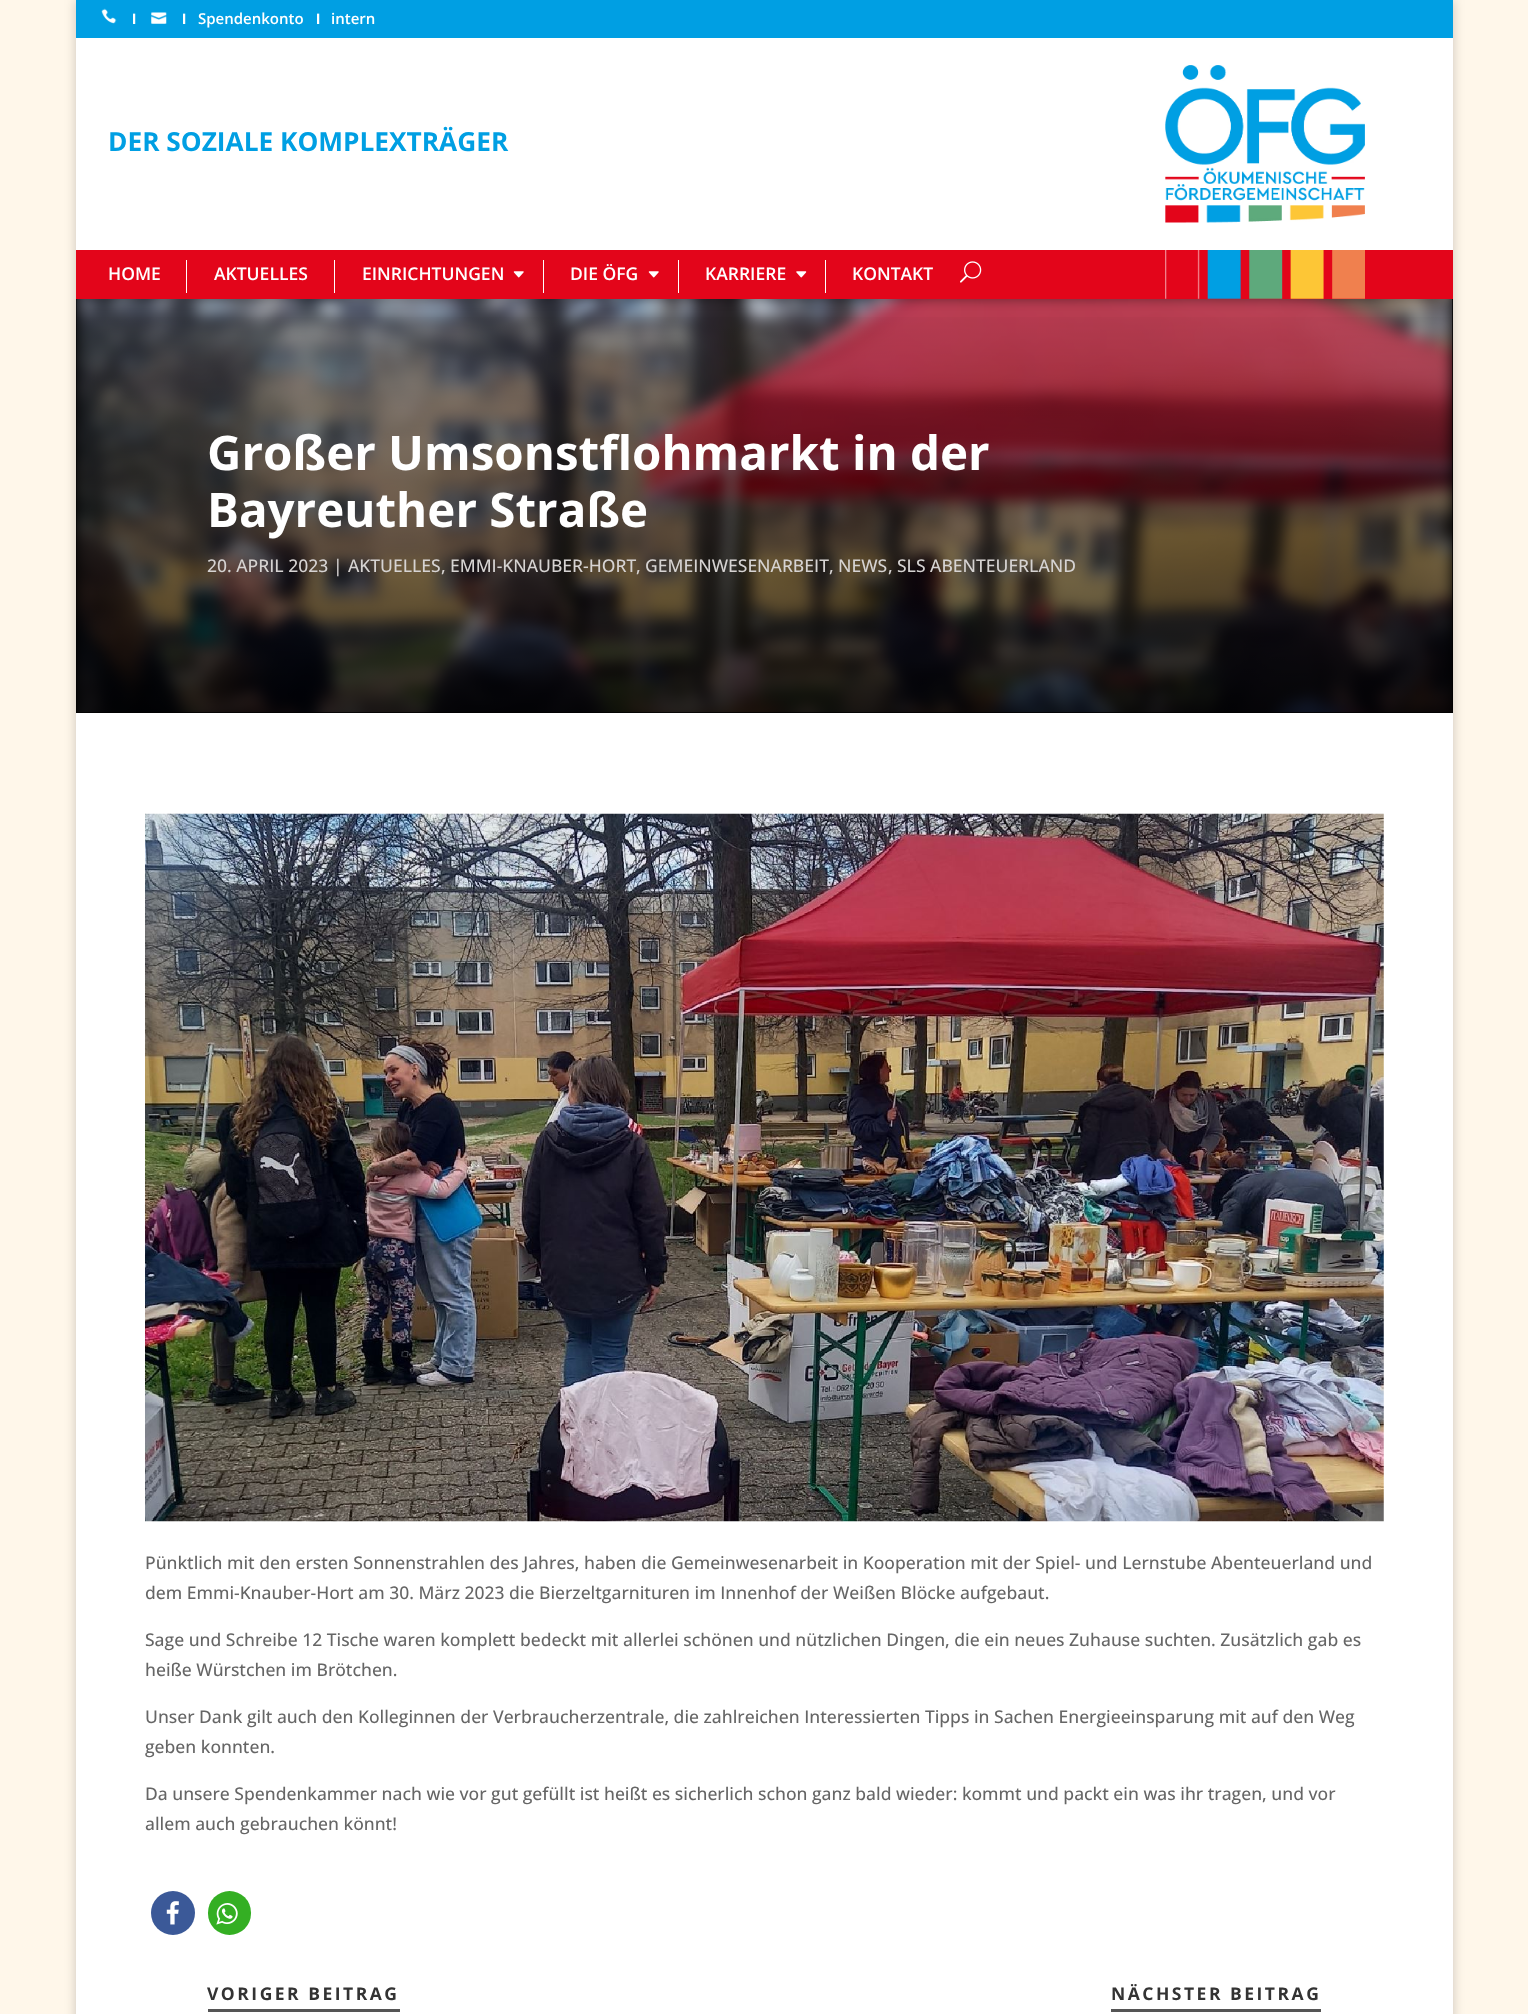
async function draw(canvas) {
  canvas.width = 1528;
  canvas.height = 2014;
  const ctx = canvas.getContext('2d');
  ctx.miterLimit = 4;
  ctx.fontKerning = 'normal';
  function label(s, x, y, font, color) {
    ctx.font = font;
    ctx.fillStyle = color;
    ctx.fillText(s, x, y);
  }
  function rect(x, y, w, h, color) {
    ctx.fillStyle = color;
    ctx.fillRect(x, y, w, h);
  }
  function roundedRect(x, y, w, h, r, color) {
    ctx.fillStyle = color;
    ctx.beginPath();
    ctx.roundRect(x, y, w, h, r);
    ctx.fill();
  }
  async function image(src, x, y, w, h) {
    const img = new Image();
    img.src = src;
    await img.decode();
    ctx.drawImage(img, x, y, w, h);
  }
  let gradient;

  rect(0, 0, 1528, 2014, '#fff7ea');
  ctx.fillStyle = '#00000033';
  ctx.filter = 'blur(6px)';
  ctx.beginPath();
  ctx.rect(76, 0, 1377, 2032);
  ctx.fill();
  ctx.filter = 'none';
  rect(76, 0, 1377, 38, '#009fe3');
  await image('assets/img1.png', 101, 8, 16, 16);
  label('Ι', 132, 24, 'bold 15px Liberation Sans', '#fff');
  await image('assets/img2.png', 151, 12, 16, 12);
  label('Ι', 182, 24, 'bold 15px Liberation Sans', '#fff');
  label('Spendenkonto', 198, 24, '600 15px Open Sans', '#fff');
  label('Ι', 316, 24, 'bold 15px Liberation Sans', '#fff');
  label('intern', 331, 24, '600 15px Open Sans', '#fff');
  rect(76, 38, 1377, 212, '#fff');
  label('DER SOZIALE KOMPLEXTRÄGER', 108, 151, 'bold 26.25px Open Sans', '#009fe3');
  await image('assets/img3.png', 1165, 65, 200, 158);
  rect(76, 299, 1377, 414, '#020000');
  await image('assets/img8.png', 76, 299, 1377, 414);
  ctx.fillStyle = '#0000004d';
  ctx.filter = 'blur(5px)';
  ctx.beginPath();
  ctx.rect(86, 273, 1357, 28);
  ctx.fill();
  ctx.filter = 'none';
  rect(76, 250, 1377, 49, '#e3051a');
  rect(186, 260, 1, 33, '#fff');
  label('HOME', 108, 280, '600 17.5px Open Sans', '#fff');
  rect(334, 260, 1, 33, '#fff');
  label('AKTUELLES', 214, 280, '600 17.5px Open Sans', '#fff');
  rect(543, 260, 1, 33, '#fff');
  label('EINRICHTUNGEN', 362, 280, '600 17.5px Open Sans', '#fff');
  await image('assets/img4.png', 513, 271, 11, 7);
  rect(678, 260, 1, 33, '#fff');
  label('DIE ÖFG', 570, 280, '600 17.5px Open Sans', '#fff');
  await image('assets/img4.png', 648, 271, 11, 7);
  rect(825, 260, 1, 33, '#fff');
  label('KARRIERE', 705, 280, '600 17.5px Open Sans', '#fff');
  await image('assets/img5.png', 796, 271, 11, 7);
  label('KONTAKT', 852, 280, '600 17.5px Open Sans', '#fff');
  await image('assets/img6.png', 960, 261, 22, 22);
  await image('assets/img7.png', 1165, 250, 200, 49);
  rect(76, 713, 1377, 1301, '#fff');
  gradient = ctx.createLinearGradient(764, 299, 764, 713);
  gradient.addColorStop(0, '#ffffff00');
  gradient.addColorStop(0.01, '#00000000');
  gradient.addColorStop(0.78, '#00000082');
  gradient.addColorStop(1, '#000000cc');
  ctx.fillStyle = gradient;
  ctx.fillRect(76, 317, 1377, 396);
  label('Großer Umsonstflohmarkt in der', 207, 470, 'bold 47.5px Open Sans', '#fff');
  label('Bayreuther Straße', 207, 527, 'bold 47.5px Open Sans', '#fff');
  label('20. APRIL 2023', 207, 572, '500 17.5px Open Sans', '#d6d3d2');
  label('|', 333, 572, '500 17.5px Open Sans', '#d6d3d2');
  label('AKTUELLES', 348, 572, '500 17.5px Open Sans', '#d6d3d2');
  label(',', 441, 572, '500 17.5px Open Sans', '#d6d3d2');
  label('EMMI-KNAUBER-HORT', 450, 572, '500 17.5px Open Sans', '#d6d3d2');
  label(',', 636, 572, '500 17.5px Open Sans', '#d6d3d2');
  label('GEMEINWESENARBEIT', 645, 572, '500 17.5px Open Sans', '#d6d3d2');
  label(',', 829, 572, '500 17.5px Open Sans', '#d6d3d2');
  label('NEWS', 838, 572, '500 17.5px Open Sans', '#d6d3d2');
  label(',', 888, 572, '500 17.5px Open Sans', '#d6d3d2');
  label('SLS ABENTEUERLAND', 897, 572, '500 17.5px Open Sans', '#d6d3d2');
  await image('assets/img9.png', 145, 813, 1239, 709);
  label('Pünktlich mit den ersten Sonnenstrahlen des Jahres, haben die Gemeinwesenarbeit in Kooperation mit der Spiel- und Lernstube Abenteuerland und', 145, 1569, '500 17.5px Open Sans', '#666');
  label('dem Emmi-Knauber-Hort am 30. März 2023 die Bierzeltgarnituren im Innenhof der Weißen Blöcke aufgebaut.', 145, 1599, '500 17.5px Open Sans', '#666');
  label('Sage und Schreibe 12 Tische waren komplett bedeckt mit allerlei schönen und nützlichen Dingen, die ein neues Zuhause suchten. Zusätzlich gab es', 145, 1646, '500 17.5px Open Sans', '#666');
  label('heiße Würstchen im Brötchen.', 145, 1676, '500 17.5px Open Sans', '#666');
  label('Unser Dank gilt auch den Kolleginnen der Verbraucherzentrale, die zahlreichen Interessierten Tipps in Sachen Energieeinsparung mit auf den Weg', 145, 1723, '500 17.5px Open Sans', '#666');
  label('geben konnten.', 145, 1753, '500 17.5px Open Sans', '#666');
  label('Da unsere Spendenkammer nach wie vor gut gefüllt ist heißt es sicherlich schon ganz bald wieder: kommt und packt ein was ihr tragen, und vor', 145, 1800, '500 17.5px Open Sans', '#666');
  label('allem auch gebrauchen könnt!', 145, 1830, '500 17.5px Open Sans', '#666');
  ctx.fillStyle = '#3b5998';
  ctx.beginPath();
  ctx.arc(173, 1913, 22, 0, 2 * Math.PI);
  ctx.fill();
  await image('assets/img10.png', 166, 1901, 13, 24);
  roundedRect(208, 1891, 43, 44, 21.5, '#34af23');
  await image('assets/img11.png', 216, 1903, 22, 22);
  rect(208, 2009, 192, 3, '#555');
  ctx.letterSpacing = '2.5px';
  label('VORIGER BEITRAG', 207, 2000, 'bold 17.5px Open Sans', '#333');
  rect(1111, 2009, 210, 3, '#555');
  label('NÄCHSTER BEITRAG', 1111, 2000, 'bold 17.5px Open Sans', '#333');
}

draw(document.querySelector('canvas'));
